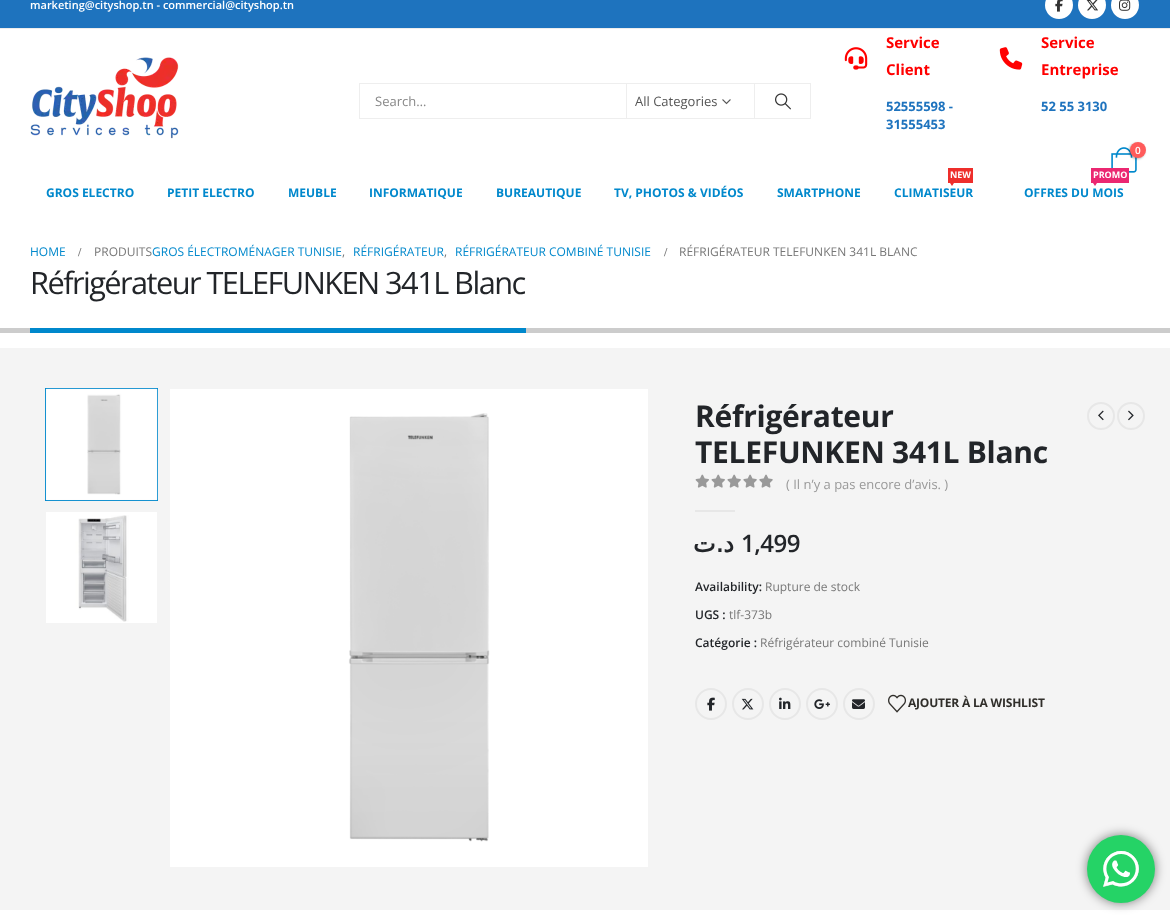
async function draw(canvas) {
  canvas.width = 1170;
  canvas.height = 918;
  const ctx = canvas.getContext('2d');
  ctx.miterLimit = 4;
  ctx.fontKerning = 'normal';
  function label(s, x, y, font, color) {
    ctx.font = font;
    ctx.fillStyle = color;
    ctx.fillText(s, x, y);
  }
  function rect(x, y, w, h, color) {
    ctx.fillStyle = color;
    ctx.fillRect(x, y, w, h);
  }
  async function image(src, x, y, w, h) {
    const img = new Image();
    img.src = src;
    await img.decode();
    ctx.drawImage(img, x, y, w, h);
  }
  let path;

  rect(0, 0, 1170, 918, '#fff');
  rect(0, 0, 1170, 28, '#1e73be');
  rect(0, 28, 1170, 1, '#ededed');
  label('marketing@cityshop.tn - commercial@cityshop.tn', 30, 9, '600 11px Open Sans', '#fff');
  ctx.beginPath();
  ctx.arc(1059, 5, 14, 0, 2 * Math.PI);
  ctx.fill();
  await image('assets/img1.png', 1055, 0, 8, 12);
  ctx.beginPath();
  ctx.arc(1092, 5, 14, 0, 2 * Math.PI);
  ctx.fill();
  await image('assets/img2.png', 1086, 0, 12, 11);
  ctx.beginPath();
  ctx.arc(1125, 5, 14, 0, 2 * Math.PI);
  ctx.fill();
  await image('assets/img3.png', 1119, 0, 12, 11);
  await image('assets/img4.png', 30, 57, 149, 82);
  ctx.strokeStyle = '#eee';
  ctx.strokeRect(359.5, 83.5, 451, 35);
  label('Search…', 375, 106, '13px Open Sans', '#888');
  rect(754, 84, 1, 34, '#eee');
  rect(626, 84, 1, 34, '#eee');
  label('All Categories', 635, 106, '13px Open Sans', '#555');
  await image('assets/img5.png', 722, 99, 9, 6);
  await image('assets/img6.png', 775, 93, 16, 17);
  await image('assets/img7.png', 844, 47, 24, 23);
  label('Service', 886, 48, 'bold 15px Open Sans', '#f00');
  label('Client', 886, 75, 'bold 15px Open Sans', '#f00');
  label('52555598 -', 886, 111, 'bold 13px Open Sans', '#1e73be');
  label('31555453', 886, 129, 'bold 13px Open Sans', '#1e73be');
  await image('assets/img8.png', 999, 47, 24, 23);
  label('Service', 1041, 48, 'bold 15px Open Sans', '#f00');
  label('Entreprise', 1041, 75, 'bold 15px Open Sans', '#f00');
  label('52 55 3130', 1041, 111, 'bold 13px Open Sans', '#1e73be');
  await image('assets/img9.png', 1111, 147, 26, 26);
  ctx.fillStyle = '#0000004d';
  ctx.filter = 'blur(1px)';
  ctx.beginPath();
  ctx.roundRect(1129, 143, 16, 16, 8);
  ctx.fill();
  ctx.filter = 'none';
  ctx.fillStyle = '#ff5b5b';
  ctx.beginPath();
  ctx.arc(1138, 150, 8, 0, 2 * Math.PI);
  ctx.fill();
  label('0', 1135, 154, '600 10px Open Sans', '#fff');
  label('GROS ELECTRO', 46, 197, 'bold 12px Open Sans', '#08c');
  label('PETIT ELECTRO', 167, 197, 'bold 12px Open Sans', '#08c');
  label('MEUBLE', 288, 197, 'bold 12px Open Sans', '#08c');
  label('INFORMATIQUE', 369, 197, 'bold 12px Open Sans', '#08c');
  label('BUREAUTIQUE', 496, 197, 'bold 12px Open Sans', '#08c');
  label('TV, PHOTOS & VIDÉOS', 614, 197, 'bold 12px Open Sans', '#08c');
  label('SMARTPHONE', 777, 197, 'bold 12px Open Sans', '#08c');
  rect(948, 168, 25, 15, '#ee2e2b');
  label('NEW', 950, 178, 'bold 9px Open Sans', '#fff');
  ctx.fillStyle = '#ee2e2b';
  path = new Path2D('M950 183H954L952 186Z');
  ctx.fill(path);
  label('CLIMATISEUR', 894, 197, 'bold 12px Open Sans', '#08c');
  rect(1091, 168, 38, 15, '#eb2771');
  label('PROMO', 1093, 178, 'bold 9px Open Sans', '#fff');
  ctx.fillStyle = '#eb2771';
  path = new Path2D('M1093 183H1097L1095 186Z');
  ctx.fill(path);
  label('OFFRES DU MOIS', 1024, 197, 'bold 12px Open Sans', '#08c');
  rect(0, 328, 1170, 5, '#ccc');
  label('HOME', 30, 256, '12px Open Sans', '#08c');
  label('/', 78, 256, 'bold 12px Liberation Serif', '#777');
  label('PRODUITS', 94, 256, '12px Open Sans', '#777');
  label('GROS ÉLECTROMÉNAGER TUNISIE', 152, 256, '12px Open Sans', '#08c');
  label(',', 342, 256, '12px Open Sans', '#777');
  label('RÉFRIGÉRATEUR', 353, 256, '12px Open Sans', '#08c');
  label(',', 444, 256, '12px Open Sans', '#777');
  label('RÉFRIGÉRATEUR COMBINÉ TUNISIE', 455, 256, '12px Open Sans', '#08c');
  label('/', 664, 256, 'bold 12px Liberation Serif', '#777');
  label('RÉFRIGÉRATEUR TELEFUNKEN 341L BLANC', 679, 256, '12px Open Sans', '#777');
  ctx.letterSpacing = '-1.55px';
  label('Réfrigérateur TELEFUNKEN 341L Blanc', 30, 294, '30.75px Open Sans', '#222529');
  rect(30, 328, 496, 5, '#08c');
  rect(0, 348, 1170, 562, '#f4f4f4');
  ctx.strokeStyle = '#08c';
  ctx.strokeRect(45.5, 388.5, 112, 112);
  await image('assets/img10.png', 45, 388, 113, 113);
  await image('assets/img11.png', 46, 512, 111, 111);
  await image('assets/img12.png', 170, 389, 478, 478);
  ctx.letterSpacing = '-0.3px';
  label('Réfrigérateur', 695, 427, 'bold 30px Open Sans', '#222529');
  label('TELEFUNKEN 341L Blanc', 695, 463, 'bold 30px Open Sans', '#222529');
  ctx.beginPath();
  ctx.arc(1101, 416, 13, 0, 2 * Math.PI);
  ctx.strokeStyle = '#e7e7e7';
  ctx.lineWidth = 2;
  ctx.stroke();
  await image('assets/img13.png', 1098, 410, 6, 11);
  ctx.beginPath();
  ctx.arc(1131, 416, 13, 0, 2 * Math.PI);
  ctx.stroke();
  await image('assets/img14.png', 1128, 410, 6, 11);
  await image('assets/img15.png', 695, 474, 78, 14);
  ctx.letterSpacing = '0px';
  label('( Il n’y a pas encore d’avis. )', 786, 489, '13px Open Sans', '#999');
  rect(695, 510, 40, 2, '#e7e7e7');
  ctx.letterSpacing = '-0.5px';
  ctx.direction = 'rtl';
  label('د.ت', 734, 552, 'bold 24px DejaVu Sans', '#222529');
  ctx.direction = 'ltr';
  label('1,499', 741, 552, '600 24px Open Sans', '#222529');
  ctx.letterSpacing = '0px';
  label('Availability:', 695, 591, '600 12px Open Sans', '#222529');
  label('Rupture de stock', 765, 591, '12px Open Sans', '#777');
  label('UGS :', 695, 619, '600 12px Open Sans', '#222529');
  label('tlf-373b', 729, 619, '12px Open Sans', '#777');
  label('Catégorie :', 695, 647, '600 12px Open Sans', '#222529');
  label('Réfrigérateur combiné Tunisie', 760, 647, '12px Open Sans', '#777');
  ctx.beginPath();
  ctx.arc(711, 704, 15, 0, 2 * Math.PI);
  ctx.stroke();
  await image('assets/img16.png', 707, 697, 8, 14);
  ctx.beginPath();
  ctx.arc(748, 704, 15, 0, 2 * Math.PI);
  ctx.stroke();
  await image('assets/img17.png', 741, 698, 13, 12);
  ctx.beginPath();
  ctx.arc(785, 704, 15, 0, 2 * Math.PI);
  ctx.stroke();
  await image('assets/img18.png', 779, 697, 12, 12);
  ctx.beginPath();
  ctx.arc(822, 704, 15, 0, 2 * Math.PI);
  ctx.stroke();
  await image('assets/img19.png', 814, 699, 16, 10);
  ctx.beginPath();
  ctx.arc(859, 704, 15, 0, 2 * Math.PI);
  ctx.stroke();
  await image('assets/img20.png', 852, 699, 13, 10);
  await image('assets/img21.png', 888, 694, 18, 19);
  ctx.letterSpacing = '-0.2px';
  label('AJOUTER À LA WISHLIST', 908, 707, 'bold 12px Open Sans', '#302e2a');
  ctx.fillStyle = '#00000080';
  ctx.filter = 'blur(5.5px)';
  ctx.beginPath();
  ctx.roundRect(1087, 835, 68, 68, 34);
  ctx.fill();
  ctx.filter = 'none';
  ctx.fillStyle = '#25d366';
  ctx.beginPath();
  ctx.arc(1121, 869, 34, 0, 2 * Math.PI);
  ctx.fill();
  await image('assets/img22.png', 1103, 851, 36, 36);
}

draw(document.querySelector('canvas'));
